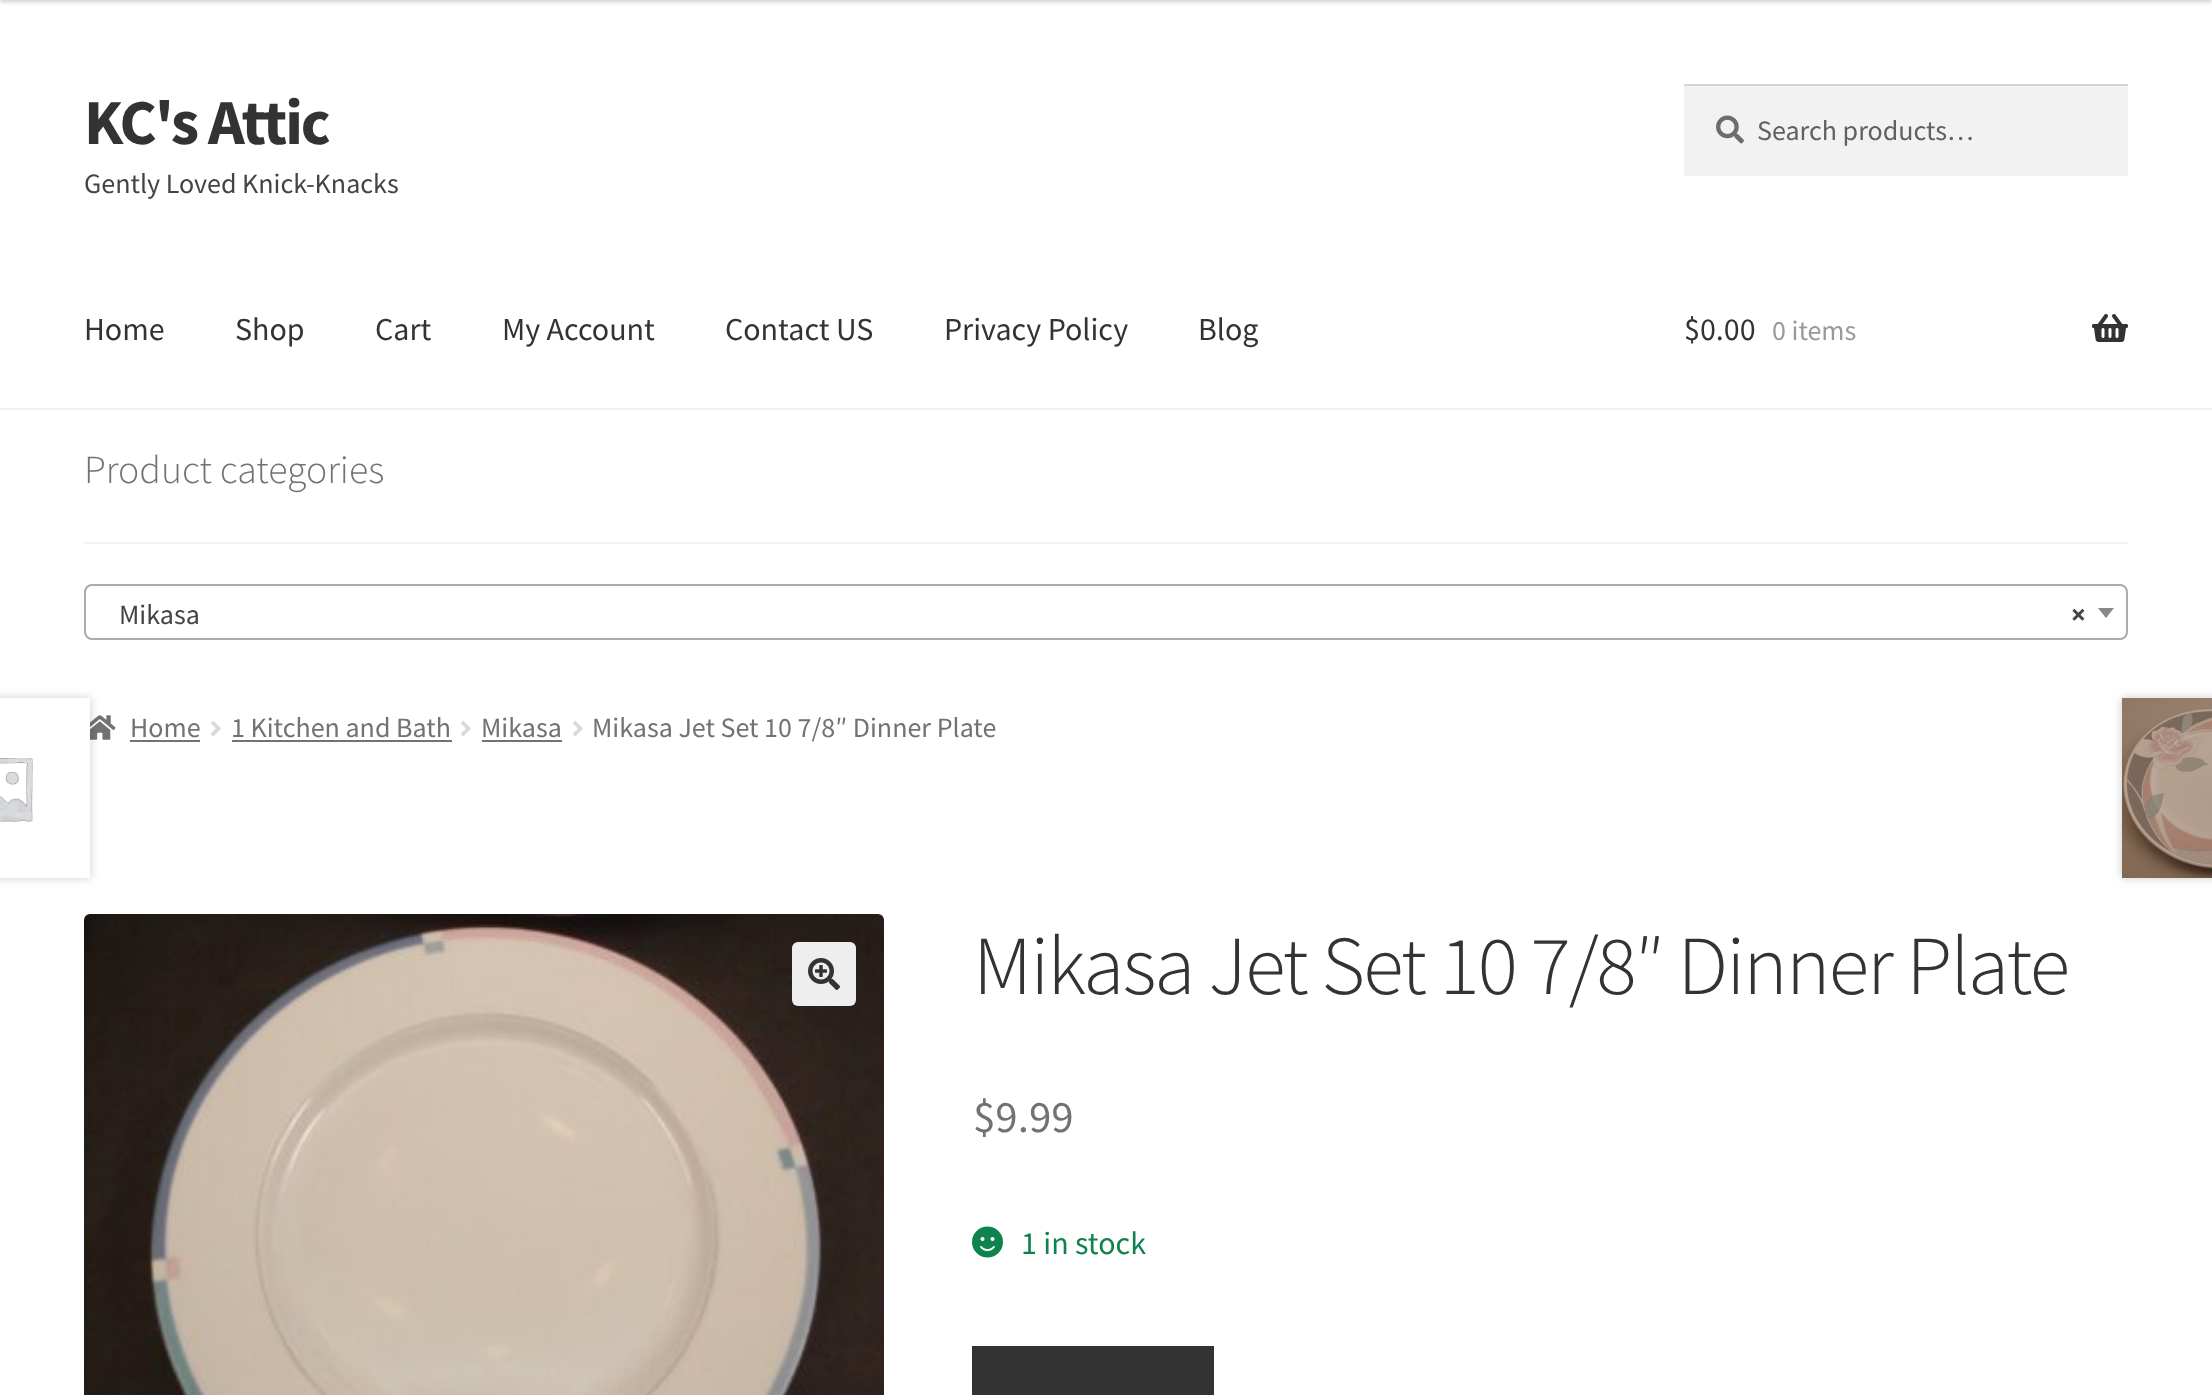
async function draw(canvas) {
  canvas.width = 2212;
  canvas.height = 1395;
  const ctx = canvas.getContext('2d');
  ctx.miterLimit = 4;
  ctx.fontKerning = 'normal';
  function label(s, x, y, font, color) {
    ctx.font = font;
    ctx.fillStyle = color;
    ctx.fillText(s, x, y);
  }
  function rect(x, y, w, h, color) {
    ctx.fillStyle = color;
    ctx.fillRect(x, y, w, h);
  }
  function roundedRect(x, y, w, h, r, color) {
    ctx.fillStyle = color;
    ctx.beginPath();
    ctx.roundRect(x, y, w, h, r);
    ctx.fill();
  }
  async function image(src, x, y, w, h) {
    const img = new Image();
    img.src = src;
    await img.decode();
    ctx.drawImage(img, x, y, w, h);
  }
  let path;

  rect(0, 0, 2212, 1395, '#fff');
  ctx.fillStyle = '#00000033';
  ctx.filter = 'blur(2px)';
  ctx.beginPath();
  ctx.rect(0, -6, 2212, 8);
  ctx.fill();
  ctx.filter = 'none';
  rect(0, 408, 2212, 2, '#f0f0f0');
  ctx.letterSpacing = '-2px';
  label('KC\'s Attic', 84, 144, 'bold 64px Source Sans Pro', '#333');
  ctx.letterSpacing = '0px';
  label('Gently Loved Knick-Knacks', 84, 193, '28px Source Sans Pro', '#444');
  rect(1684, 86, 444, 90, '#f2f2f2');
  await image('assets/img1.png', 1716, 115, 28, 29);
  rect(1684, 84, 444, 2, '#d4d4d4');
  label('Search products…', 1757, 140, '28px Source Sans Pro', '#616161');
  label('Home', 84, 340, '32px Source Sans Pro', '#333');
  label('Shop', 235, 340, '32px Source Sans Pro', '#333');
  label('Cart', 375, 340, '32px Source Sans Pro', '#333');
  label('My Account', 502, 340, '32px Source Sans Pro', '#333');
  label('Contact US', 725, 340, '32px Source Sans Pro', '#333');
  label('Privacy Policy', 944, 340, '32px Source Sans Pro', '#333');
  label('Blog', 1198, 340, '32px Source Sans Pro', '#333');
  label('$0.00', 1684, 340, '32px Source Sans Pro', '#333');
  label('0 items', 1772, 340, '28px Source Sans Pro', '#999');
  await image('assets/img2.png', 2092, 314, 36, 28);
  rect(84, 542, 2044, 2, '#f2f2f2');
  label('Product categories', 84, 483, '300 39.75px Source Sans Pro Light', '#727272');
  ctx.beginPath();
  ctx.roundRect(85, 585, 2042, 54, 7);
  ctx.strokeStyle = '#aaa';
  ctx.lineWidth = 2;
  ctx.stroke();
  label('Mikasa', 119, 624, '28px Source Sans Pro', '#444');
  label('×', 2071, 624, 'bold 28px Source Sans Pro', '#444');
  ctx.fillStyle = '#888';
  path = new Path2D('M2098 608H2114L2106 618Z');
  ctx.fill(path);
  await image('assets/img3.png', 90, 715, 26, 25);
  label('Home', 130, 737, '28px Source Sans Pro', '#727272');
  rect(130, 740, 70, 2, '#727272');
  await image('assets/img4.png', 211, 721, 10, 16);
  label('1 Kitchen and Bath', 231, 737, '28px Source Sans Pro', '#727272');
  rect(232, 740, 220, 2, '#727272');
  await image('assets/img4.png', 461, 721, 10, 16);
  label('Mikasa', 481, 737, '28px Source Sans Pro', '#727272');
  rect(482, 740, 80, 2, '#727272');
  await image('assets/img4.png', 573, 721, 10, 16);
  label('Mikasa Jet Set 10 7/8″ Dinner Plate', 592, 737, '28px Source Sans Pro', '#727272');
  ctx.fillStyle = '#00000033';
  ctx.filter = 'blur(5px)';
  ctx.beginPath();
  ctx.rect(-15, 698, 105, 180);
  ctx.fill();
  ctx.filter = 'none';
  rect(0, 698, 90, 180, '#fff');
  await image('assets/img5.png', 0, 758, 33, 64);
  ctx.fillStyle = '#00000033';
  ctx.filter = 'blur(5px)';
  ctx.beginPath();
  ctx.rect(2122, 698, 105, 180);
  ctx.fill();
  ctx.filter = 'none';
  await image('assets/img6.png', 2122, 698, 90, 180);
  await image('assets/img7.png', 84, 914, 800, 481);
  roundedRect(792, 942, 64, 64, 6, '#eee');
  await image('assets/img8.png', 808, 958, 32, 32);
  ctx.letterSpacing = '-2px';
  label('Mikasa Jet Set 10 7/8″ Dinner Plate', 973, 994, '300 83.75px Source Sans Pro Light', '#333');
  ctx.letterSpacing = '0px';
  label('$9.99', 973, 1132, '45px Source Sans Pro', '#727272');
  await image('assets/img9.png', 972, 1226, 31, 32);
  label('1 in stock', 1021, 1254, '32px Source Sans Pro', '#0f834d');
  rect(972, 1346, 242, 49, '#333');
}

draw(document.querySelector('canvas'));
